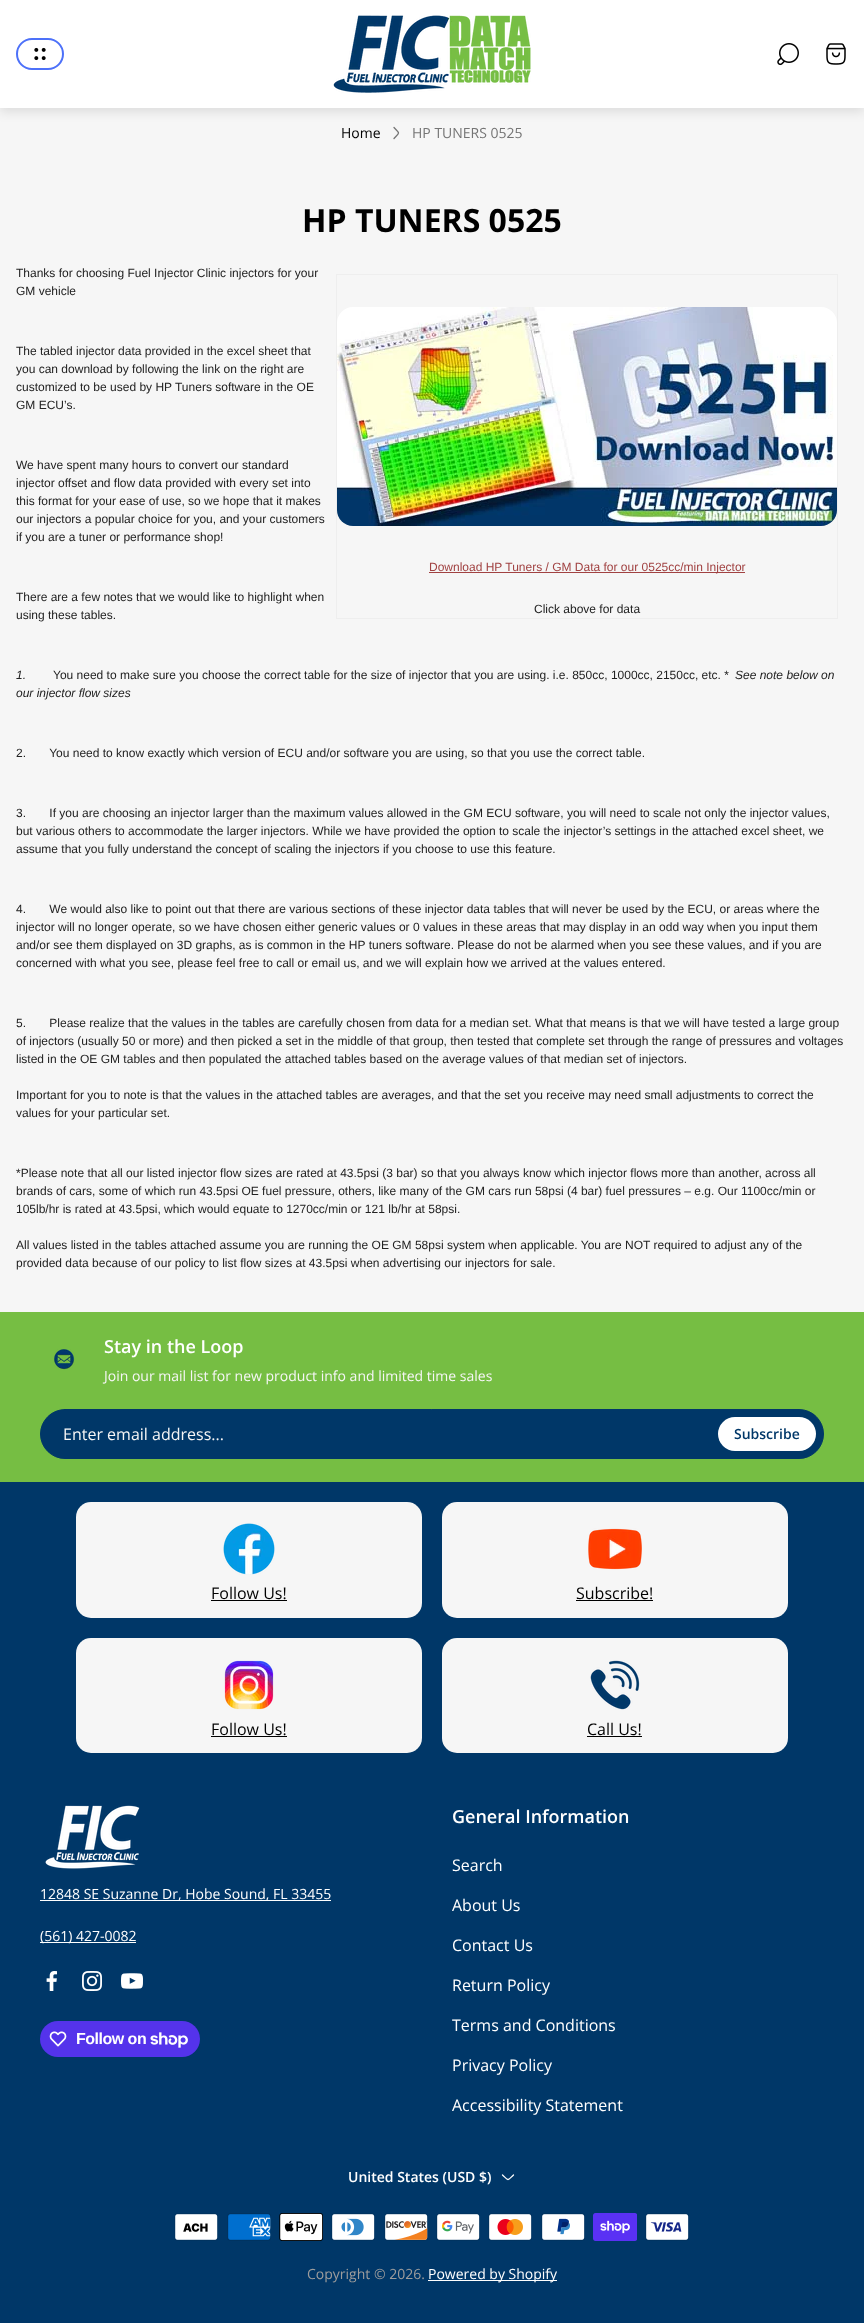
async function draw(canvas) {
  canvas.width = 864;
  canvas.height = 2323;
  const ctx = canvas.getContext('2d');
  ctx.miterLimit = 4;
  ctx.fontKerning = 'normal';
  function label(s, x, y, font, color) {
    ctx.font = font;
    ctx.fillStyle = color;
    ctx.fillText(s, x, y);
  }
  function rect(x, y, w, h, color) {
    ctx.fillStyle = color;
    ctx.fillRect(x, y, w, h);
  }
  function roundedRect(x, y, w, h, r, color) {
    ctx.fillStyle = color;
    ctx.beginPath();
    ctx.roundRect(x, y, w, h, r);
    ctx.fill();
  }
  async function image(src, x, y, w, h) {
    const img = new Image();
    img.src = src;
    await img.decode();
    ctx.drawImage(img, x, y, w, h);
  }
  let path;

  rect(0, 0, 864, 2323, '#f6f6f6');
  path = new Path2D('M394 138.5C400 132 400 134 394 127.5');
  ctx.strokeStyle = '#757575';
  ctx.lineWidth = 1.3;
  ctx.lineCap = 'round';
  ctx.lineJoin = 'round';
  ctx.stroke(path);
  ctx.fillStyle = '#0000001a';
  ctx.filter = 'blur(5.5px)';
  ctx.beginPath();
  ctx.rect(0, 4, 864, 108);
  ctx.fill();
  ctx.filter = 'none';
  rect(0, 0, 864, 108, '#fff');
  ctx.beginPath();
  ctx.roundRect(17, 39, 46, 30, 15);
  ctx.strokeStyle = '#4d71f9';
  ctx.lineWidth = 2;
  ctx.lineJoin = 'miter';
  ctx.stroke();
  await image('assets/img1.png', 34, 47, 12, 14);
  await image('assets/img2.png', 333, 15, 198, 78);
  await image('assets/img3.png', 777, 43, 22, 23);
  await image('assets/img4.png', 826, 43, 20, 22);
  label('Home', 341, 138, '14px Open Sans', '#000');
  label('HP TUNERS 0525', 412, 138, '14px Open Sans', '#757575');
  label('HP TUNERS 0525', 302, 232, 'bold 32px Open Sans', '#000');
  label('Thanks for choosing Fuel Injector Clinic injectors for your', 16, 277, '12px Liberation Sans', '#222');
  label('GM vehicle', 16, 295, '12px Liberation Sans', '#222');
  label('The tabled injector data provided in the excel sheet that', 16, 355, '12px Liberation Sans', '#222');
  label('you can download by following the link on the right are', 16, 373, '12px Liberation Sans', '#222');
  label('customized to be used by HP Tuners software in the OE', 16, 391, '12px Liberation Sans', '#222');
  label('GM ECU’s.', 16, 409, '12px Liberation Sans', '#222');
  label('We have spent many hours to convert our standard', 16, 469, '12px Liberation Sans', '#222');
  label('injector offset and flow data provided with every set into', 16, 487, '12px Liberation Sans', '#222');
  label('this format for your ease of use, so we hope that it makes', 16, 505, '12px Liberation Sans', '#222');
  label('our injectors a popular choice for you, and your customers', 16, 523, '12px Liberation Sans', '#222');
  label('if you are a tuner or performance shop!', 16, 541, '12px Liberation Sans', '#222');
  label('There are a few notes that we would like to highlight when', 16, 601, '12px Liberation Sans', '#222');
  label('using these tables.', 16, 619, '12px Liberation Sans', '#222');
  ctx.strokeStyle = '#eee';
  ctx.lineWidth = 1;
  ctx.strokeRect(336.5, 274.5, 501, 344);
  await image('assets/img5.png', 337, 307, 500, 219);
  rect(429, 572, 316, 1, '#a14242');
  label('Download HP Tuners / GM Data for our 0525cc/min Injector', 429, 571, '12px Liberation Sans', '#a14242');
  label('Click above for data', 534, 613, '12px Liberation Sans', '#222');
  label('1.', 16, 679, 'italic 12px Liberation Sans', '#222');
  label('You need to make sure you choose the correct table for the size of injector that you are using. i.e. 850cc, 1000cc, 2150cc, etc. *', 53, 679, '12px Liberation Sans', '#222');
  label('See note below on', 735, 679, 'italic 12px Liberation Sans', '#222');
  label('our injector flow sizes', 16, 697, 'italic 12px Liberation Sans', '#222');
  label('2.       You need to know exactly which version of ECU and/or software you are using, so that you use the correct table.', 16, 757, '12px Liberation Sans', '#222');
  label('3.       If you are choosing an injector larger than the maximum values allowed in the GM ECU software, you will need to scale not only the injector values,', 16, 817, '12px Liberation Sans', '#222');
  label('but various others to accommodate the larger injectors. While we have provided the option to scale the injector’s settings in the attached excel sheet, we', 16, 835, '12px Liberation Sans', '#222');
  label('assume that you fully understand the concept of scaling the injectors if you choose to use this feature.', 16, 853, '12px Liberation Sans', '#222');
  label('4.       We would also like to point out that there are various sections of these injector data tables that will never be used by the ECU, or areas where the', 16, 913, '12px Liberation Sans', '#222');
  label('injector will no longer operate, so we have chosen either generic values or 0 values in these areas that may display in an odd way when you input them', 16, 931, '12px Liberation Sans', '#222');
  label('and/or see them displayed on 3D graphs, as is common in the HP tuners software. Please do not be alarmed when you see these values, and if you are', 16, 949, '12px Liberation Sans', '#222');
  label('concerned with what you see, please feel free to call or email us, and we will explain how we arrived at the values entered.', 16, 967, '12px Liberation Sans', '#222');
  label('5.       Please realize that the values in the tables are carefully chosen from data for a median set. What that means is that we will have tested a large group', 16, 1027, '12px Liberation Sans', '#222');
  label('of injectors (usually 50 or more) and then picked a set in the middle of that group, then tested that complete set through the range of pressures and voltages', 16, 1045, '12px Liberation Sans', '#222');
  label('listed in the OE GM tables and then populated the attached tables based on the average values of that median set of injectors.', 16, 1063, '12px Liberation Sans', '#222');
  label('Important for you to note is that the values in the attached tables are averages, and that the set you receive may need small adjustments to correct the', 16, 1099, '12px Liberation Sans', '#222');
  label('values for your particular set.', 16, 1117, '12px Liberation Sans', '#222');
  label('*Please note that all our listed injector flow sizes are rated at 43.5psi (3 bar) so that you always know which injector flows more than another, across all', 16, 1177, '12px Liberation Sans', '#222');
  label('brands of cars, some of which run 43.5psi OE fuel pressure, others, like many of the GM cars run 58psi (4 bar) fuel pressures – e.g. Our 1100cc/min or', 16, 1195, '12px Liberation Sans', '#222');
  label('105lb/hr is rated at 43.5psi, which would equate to 1270cc/min or 121 lb/hr at 58psi.', 16, 1213, '12px Liberation Sans', '#222');
  label('All values listed in the tables attached assume you are running the OE GM 58psi system when applicable. You are NOT required to adjust any of the', 16, 1249, '12px Liberation Sans', '#222');
  label('provided data because of our policy to list flow sizes at 43.5psi when advertising our injectors for sale.', 16, 1267, '12px Liberation Sans', '#222');
  rect(0, 1482, 864, 841, '#003768');
  rect(0, 1312, 864, 170, '#76be43');
  await image('assets/img6.png', 54, 1349, 21, 21);
  label('Stay in the Loop', 104, 1353, '600 18px Open Sans', '#fff');
  label('Join our mail list for new product info and limited time sales', 104, 1381, '14px Open Sans', '#f6f6f6');
  ctx.fillStyle = '#003768';
  ctx.beginPath();
  ctx.roundRect(40.5, 1409.5, 783, 49, 24.5);
  ctx.fill();
  ctx.strokeStyle = '#003768';
  ctx.stroke();
  label('Enter email address...', 63, 1440, '16px Open Sans', '#f6f6f6');
  roundedRect(718, 1417, 98, 34, 17, '#fff');
  label('Subscribe', 734, 1439, '600 14px Open Sans', '#003768');
  roundedRect(76, 1502, 346, 116, 15, '#f6f6f6');
  await image('assets/img7.png', 223, 1523, 52, 52);
  label('Follow Us!', 211, 1599, '16px Open Sans', '#000');
  rect(211, 1600, 76, 1, '#000');
  roundedRect(442, 1502, 346, 116, 15, '#f6f6f6');
  await image('assets/img8.png', 588, 1528, 54, 42);
  label('Subscribe!', 576, 1599, '16px Open Sans', '#000');
  rect(576, 1600, 77, 1, '#000');
  roundedRect(76, 1638, 346, 115, 15, '#f6f6f6');
  await image('assets/img9.png', 224, 1660, 50, 50);
  label('Follow Us!', 211, 1735, '16px Open Sans', '#000');
  rect(211, 1736, 76, 1, '#000');
  roundedRect(442, 1638, 346, 115, 15, '#f6f6f6');
  await image('assets/img10.png', 590, 1660, 50, 50);
  label('Call Us!', 587, 1735, '16px Open Sans', '#000');
  rect(587, 1736, 55, 1, '#000');
  await image('assets/img11.png', 45, 1805, 95, 64);
  rect(40, 1900, 291, 1, '#fff');
  label('12848 SE Suzanne Dr, Hobe Sound, FL 33455', 40, 1899, '14px Open Sans', '#fff');
  rect(40, 1942, 96, 1, '#fff');
  label('(561) 427-0082', 40, 1941, '14px Open Sans', '#fff');
  await image('assets/img12.png', 46, 1971, 11, 20);
  await image('assets/img13.png', 82, 1971, 20, 20);
  await image('assets/img14.png', 121, 1973, 22, 16);
  roundedRect(40, 2021, 160, 36, 18, '#5433eb');
  await image('assets/img15.png', 49, 2031, 18, 16);
  ctx.letterSpacing = '-0.5px';
  label('Follow on', 76, 2044, 'bold 16px Liberation Sans', '#fff');
  await image('assets/img16.png', 150, 2032, 38, 16);
  ctx.letterSpacing = '0px';
  label('General Information', 452, 1823, '600 18px Open Sans', '#fff');
  label('Search', 452, 1871, '16px Open Sans', '#fff');
  label('About Us', 452, 1911, '16px Open Sans', '#fff');
  label('Contact Us', 452, 1951, '16px Open Sans', '#fff');
  label('Return Policy', 452, 1991, '16px Open Sans', '#fff');
  label('Terms and Conditions', 452, 2031, '16px Open Sans', '#fff');
  label('Privacy Policy', 452, 2071, '16px Open Sans', '#fff');
  label('Accessibility Statement', 452, 2111, '16px Open Sans', '#fff');
  label('United States (USD $)', 348, 2182, '600 14px Open Sans', '#fff');
  path = new Path2D('M513.5 2175C507 2181 509 2181 502.5 2175');
  ctx.strokeStyle = '#fff';
  ctx.lineWidth = 1.3;
  ctx.lineJoin = 'round';
  ctx.stroke(path);
  await image('assets/img17.png', 174, 2213, 44, 28);
  await image('assets/img18.png', 227, 2213, 44, 28);
  await image('assets/img19.png', 279, 2213, 44, 28);
  await image('assets/img20.png', 331, 2213, 44, 28);
  await image('assets/img21.png', 384, 2213, 44, 28);
  await image('assets/img22.png', 436, 2213, 44, 28);
  await image('assets/img23.png', 488, 2213, 44, 28);
  await image('assets/img24.png', 541, 2213, 44, 28);
  await image('assets/img25.png', 593, 2213, 44, 28);
  await image('assets/img26.png', 645, 2213, 44, 28);
  label('Copyright © 2026.', 307, 2279, '14px Open Sans', '#9d9d9d');
  rect(428, 2280, 129, 1, '#fff');
  label('Powered by Shopify', 428, 2279, '14px Open Sans', '#fff');
}

draw(document.querySelector('canvas'));
